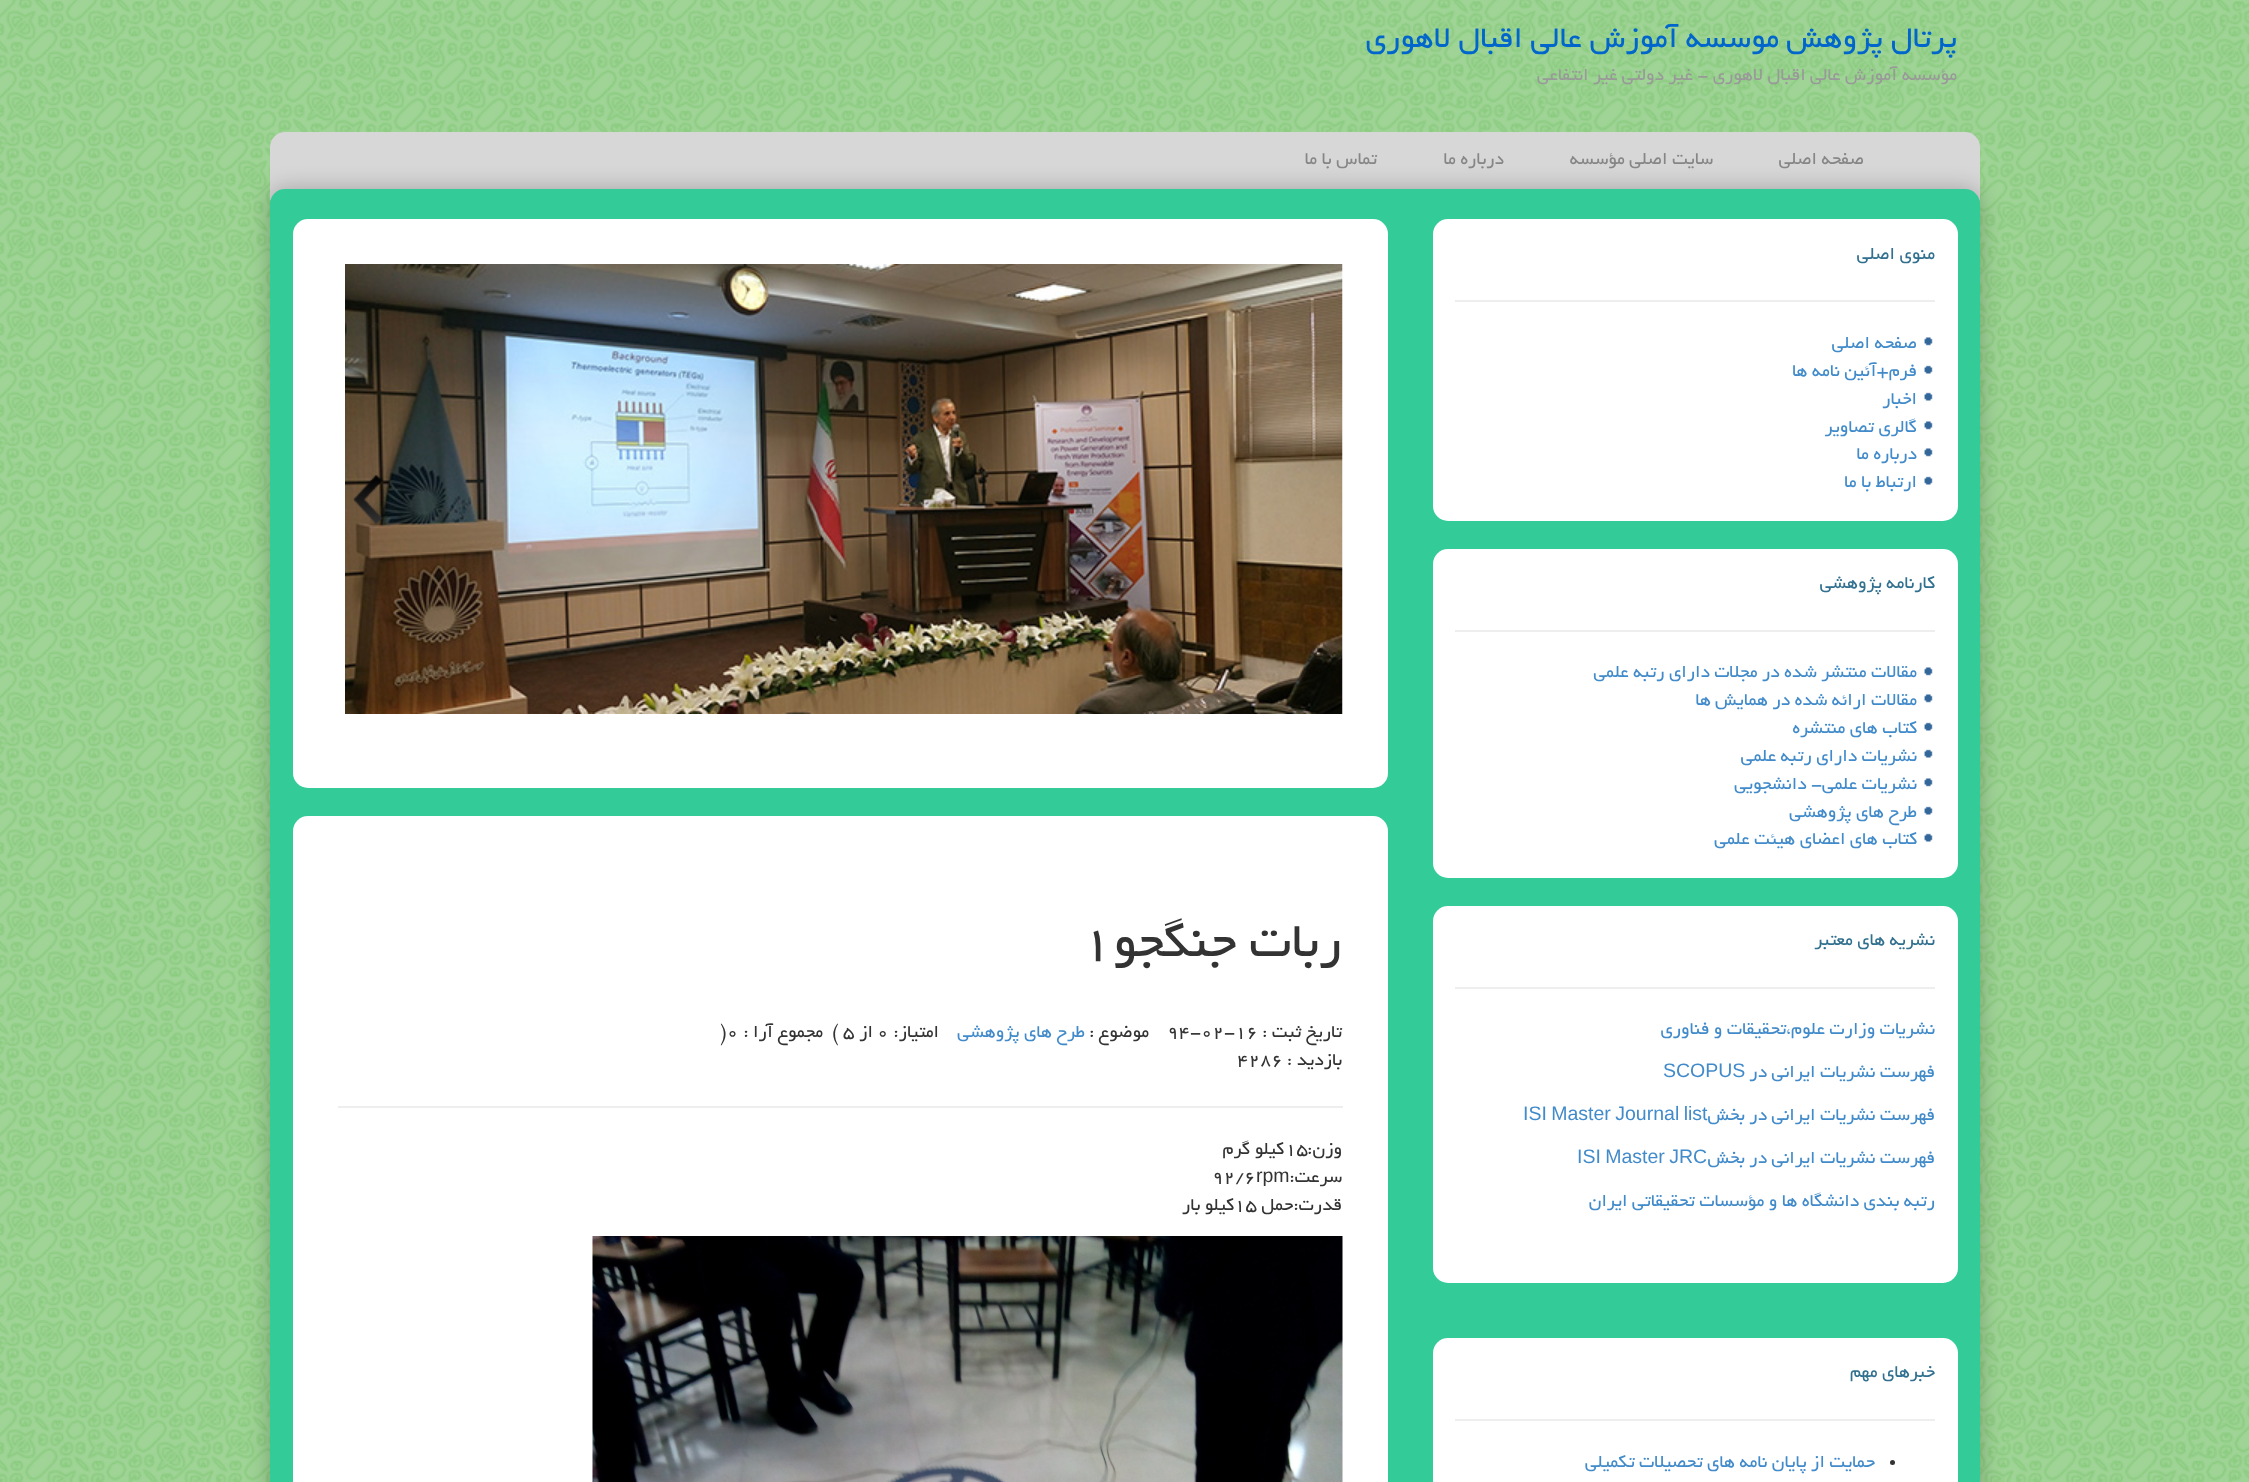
async function draw(canvas) {
  canvas.width = 2249;
  canvas.height = 1482;
  const ctx = canvas.getContext('2d');
  ctx.miterLimit = 4;
  ctx.fontKerning = 'normal';
  function label(s, x, y, font, color) {
    ctx.font = font;
    ctx.fillStyle = color;
    ctx.fillText(s, x, y);
  }
  function rect(x, y, w, h, color) {
    ctx.fillStyle = color;
    ctx.fillRect(x, y, w, h);
  }
  function roundedRect(x, y, w, h, r, color) {
    ctx.fillStyle = color;
    ctx.beginPath();
    ctx.roundRect(x, y, w, h, r);
    ctx.fill();
  }
  async function image(src, x, y, w, h) {
    const img = new Image();
    img.src = src;
    await img.decode();
    ctx.drawImage(img, x, y, w, h);
  }

  rect(0, 0, 2249, 1482, '#fff');
  await image('assets/img1.png', 0, 0, 2249, 1482);
  ctx.direction = 'rtl';
  label('پرتال پژوهش موسسه آموزش عالی اقبال لاهوری', 1957, 47, '33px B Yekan', '#06c');
  label('مؤسسه آموزش عالی اقبال لاهوری - غیر دولتی غیر انتفاعی', 1957, 80, '19.5px B Yekan', '#999');
  ctx.fillStyle = '#d7d7d7';
  ctx.beginPath();
  ctx.roundRect(270, 132, 1710, 68, [15, 15, 0, 0]);
  ctx.fill();
  ctx.fillStyle = '#00000040';
  ctx.filter = 'blur(11px)';
  ctx.beginPath();
  ctx.roundRect(270, 189, 1710, 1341, 15);
  ctx.fill();
  ctx.filter = 'none';
  label('صفحه اصلی', 1864, 164, '19.5px B Yekan', '#868686');
  label('سایت اصلی مؤسسه', 1713, 164, '19.5px B Yekan', '#868686');
  label('درباره ما', 1504, 164, '19.5px B Yekan', '#868686');
  label('تماس با ما', 1377, 164, '19.5px B Yekan', '#868686');
  roundedRect(270, 189, 1710, 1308, 15, '#3c9');
  roundedRect(1433, 219, 525, 302, 15, '#fff');
  label('منوی اصلی', 1935, 259, '19.5px B Yekan', '#31708f');
  rect(1455, 300, 480, 2, '#eee');
  await image('assets/img2.png', 1924, 337, 9, 9);
  label('صفحه اصلی', 1917, 348, '19.5px B Yekan', '#428bca');
  await image('assets/img3.png', 1924, 365, 9, 9);
  label('فرم+آئين نامه ها', 1917, 376, '19.5px B Yekan', '#428bca');
  await image('assets/img3.png', 1924, 392, 9, 9);
  label('اخبار', 1917, 404, '19.5px B Yekan', '#428bca');
  await image('assets/img2.png', 1924, 421, 9, 9);
  label('گالری تصاویر', 1917, 432, '19.5px B Yekan', '#428bca');
  await image('assets/img2.png', 1924, 448, 9, 9);
  label('درباره ما', 1917, 459, '19.5px B Yekan', '#428bca');
  await image('assets/img3.png', 1924, 476, 9, 9);
  label('ارتباط با ما', 1917, 487, '19.5px B Yekan', '#428bca');
  roundedRect(1433, 549, 525, 329, 15, '#fff');
  label('كارنامه پژوهشي', 1935, 588, '19.5px B Yekan', '#31708f');
  rect(1455, 630, 480, 2, '#eee');
  await image('assets/img2.png', 1924, 667, 9, 9);
  label('مقالات منتشر شده در مجلات داراي رتبه علمي', 1917, 677, '19.5px B Yekan', '#428bca');
  await image('assets/img2.png', 1924, 694, 9, 9);
  label('مقالات ارائه شده در همايش ها', 1917, 705, '19.5px B Yekan', '#428bca');
  await image('assets/img3.png', 1924, 722, 9, 9);
  label('كتاب هاي منتشره', 1917, 733, '19.5px B Yekan', '#428bca');
  await image('assets/img3.png', 1924, 749, 9, 9);
  label('نشريات داراي رتبه علمي', 1917, 761, '19.5px B Yekan', '#428bca');
  await image('assets/img2.png', 1924, 778, 9, 9);
  label('نشريات علمي- دانشجويي', 1917, 789, '19.5px B Yekan', '#428bca');
  await image('assets/img3.png', 1924, 806, 9, 9);
  label('طرح هاي پژوهشي', 1917, 817, '19.5px B Yekan', '#428bca');
  await image('assets/img3.png', 1924, 833, 9, 9);
  label('كتاب هاي اعضاي هيئت علمي', 1917, 844, '19.5px B Yekan', '#428bca');
  roundedRect(1433, 906, 525, 377, 15, '#fff');
  label('نشریه های معتبر', 1935, 945, '19.5px B Yekan', '#31708f');
  rect(1455, 987, 480, 2, '#eee');
  label('نشريات وزارت علوم،تحقيقات و فناوري', 1935, 1034, '19.5px B Yekan', '#428bca');
  label('فهرست نشريات ايراني در', 1935, 1077, '19.5px B Yekan', '#428bca');
  ctx.direction = 'ltr';
  label('SCOPUS', 1663, 1077, '19.5px Liberation Sans', '#428bca');
  ctx.wordSpacing = '-1px';
  label('ISI Master Journal list', 1523, 1120, '19.5px Liberation Sans', '#428bca');
  ctx.wordSpacing = '0px';
  ctx.direction = 'rtl';
  label('فهرست نشريات ايراني در بخش', 1935, 1120, '19.5px B Yekan', '#428bca');
  label('فهرست نشريات ايراني در بخش', 1935, 1163, '19.5px B Yekan', '#428bca');
  ctx.wordSpacing = '-1px';
  ctx.direction = 'ltr';
  label('ISI Master JRC', 1577, 1163, '19.5px Liberation Sans', '#428bca');
  ctx.wordSpacing = '0px';
  ctx.direction = 'rtl';
  label('رتبه بندي دانشگاه ها و مؤسسات تحقيقاتي ايران', 1935, 1206, '19.5px B Yekan', '#428bca');
  roundedRect(1433, 1338, 525, 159, 15, '#fff');
  label('خبرهاي مهم', 1935, 1377, '19.5px B Yekan', '#31708f');
  rect(1455, 1419, 480, 2, '#eee');
  ctx.fillStyle = '#333';
  ctx.beginPath();
  ctx.arc(1892.5, 1462.5, 2.5, 0, 2 * Math.PI);
  ctx.fill();
  label('حمايت از پايان نامه هاي تحصيلات تكميلي', 1875, 1467, '19.5px B Yekan', '#428bca');
  roundedRect(293, 219, 1095, 569, 15, '#fff');
  await image('assets/img4.png', 345, 264, 998, 450);
  await image('assets/img5.png', 353, 475, 30, 49);
  roundedRect(293, 816, 1095, 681, 15, '#fff');
  label('ربات جنگجو', 1342, 956, '54px B Yekan', '#333');
  ctx.direction = 'ltr';
  label('1', 1081, 956, '54px B Yekan', '#333');
  ctx.direction = 'rtl';
  label('تاریخ ثبت :', 1342, 1037, '19.5px B Yekan', '#333');
  ctx.direction = 'ltr';
  label('۹۴-۰۲-۱۶', 1167, 1037, '19.5px B Yekan', '#333');
  ctx.direction = 'rtl';
  label('موضوع :', 1149, 1037, '19.5px B Yekan', '#333');
  label('طرح هاي پژوهشي', 1085, 1037, '19.5px B Yekan', '#428bca');
  label('امتیاز:', 939, 1037, '19.5px B Yekan', '#333');
  ctx.direction = 'ltr';
  label('0', 877, 1037, '19.5px B Yekan', '#333');
  ctx.direction = 'rtl';
  label('از', 873, 1037, '19.5px B Yekan', '#333');
  ctx.direction = 'ltr';
  label('5', 843, 1037, '19.5px B Yekan', '#333');
  label('(', 832, 1037, '19.5px B Yekan', '#333');
  ctx.direction = 'rtl';
  label('مجموع آرا :', 823, 1037, '19.5px B Yekan', '#333');
  ctx.direction = 'ltr';
  label(')0', 720, 1037, '19.5px B Yekan', '#333');
  ctx.direction = 'rtl';
  label('بازدید :', 1342, 1065, '19.5px B Yekan', '#333');
  ctx.direction = 'ltr';
  label('۴۲۸۶', 1237, 1065, '19.5px B Yekan', '#333');
  rect(338, 1106, 1005, 2, '#eee');
  ctx.direction = 'rtl';
  label('وزن:', 1342, 1154, '19.5px B Yekan', '#333');
  ctx.direction = 'ltr';
  label('۱۵', 1285, 1154, '19.5px B Yekan', '#333');
  ctx.direction = 'rtl';
  label('کیلو گرم', 1284, 1154, '19.5px B Yekan', '#333');
  label('سرعت:', 1342, 1182, '19.5px B Yekan', '#333');
  ctx.direction = 'ltr';
  label('rpm', 1256, 1182, '19.5px Liberation Sans', '#333');
  label('۹۲/۶', 1212, 1182, '19.5px B Yekan', '#333');
  ctx.direction = 'rtl';
  label('قدرت:حمل', 1342, 1210, '19.5px B Yekan', '#333');
  ctx.direction = 'ltr';
  label('۱۵', 1234, 1210, '19.5px B Yekan', '#333');
  ctx.direction = 'rtl';
  label('کیلو بار', 1234, 1210, '19.5px B Yekan', '#333');
  await image('assets/img6.png', 592, 1236, 751, 246);
}

draw(document.querySelector('canvas'));
